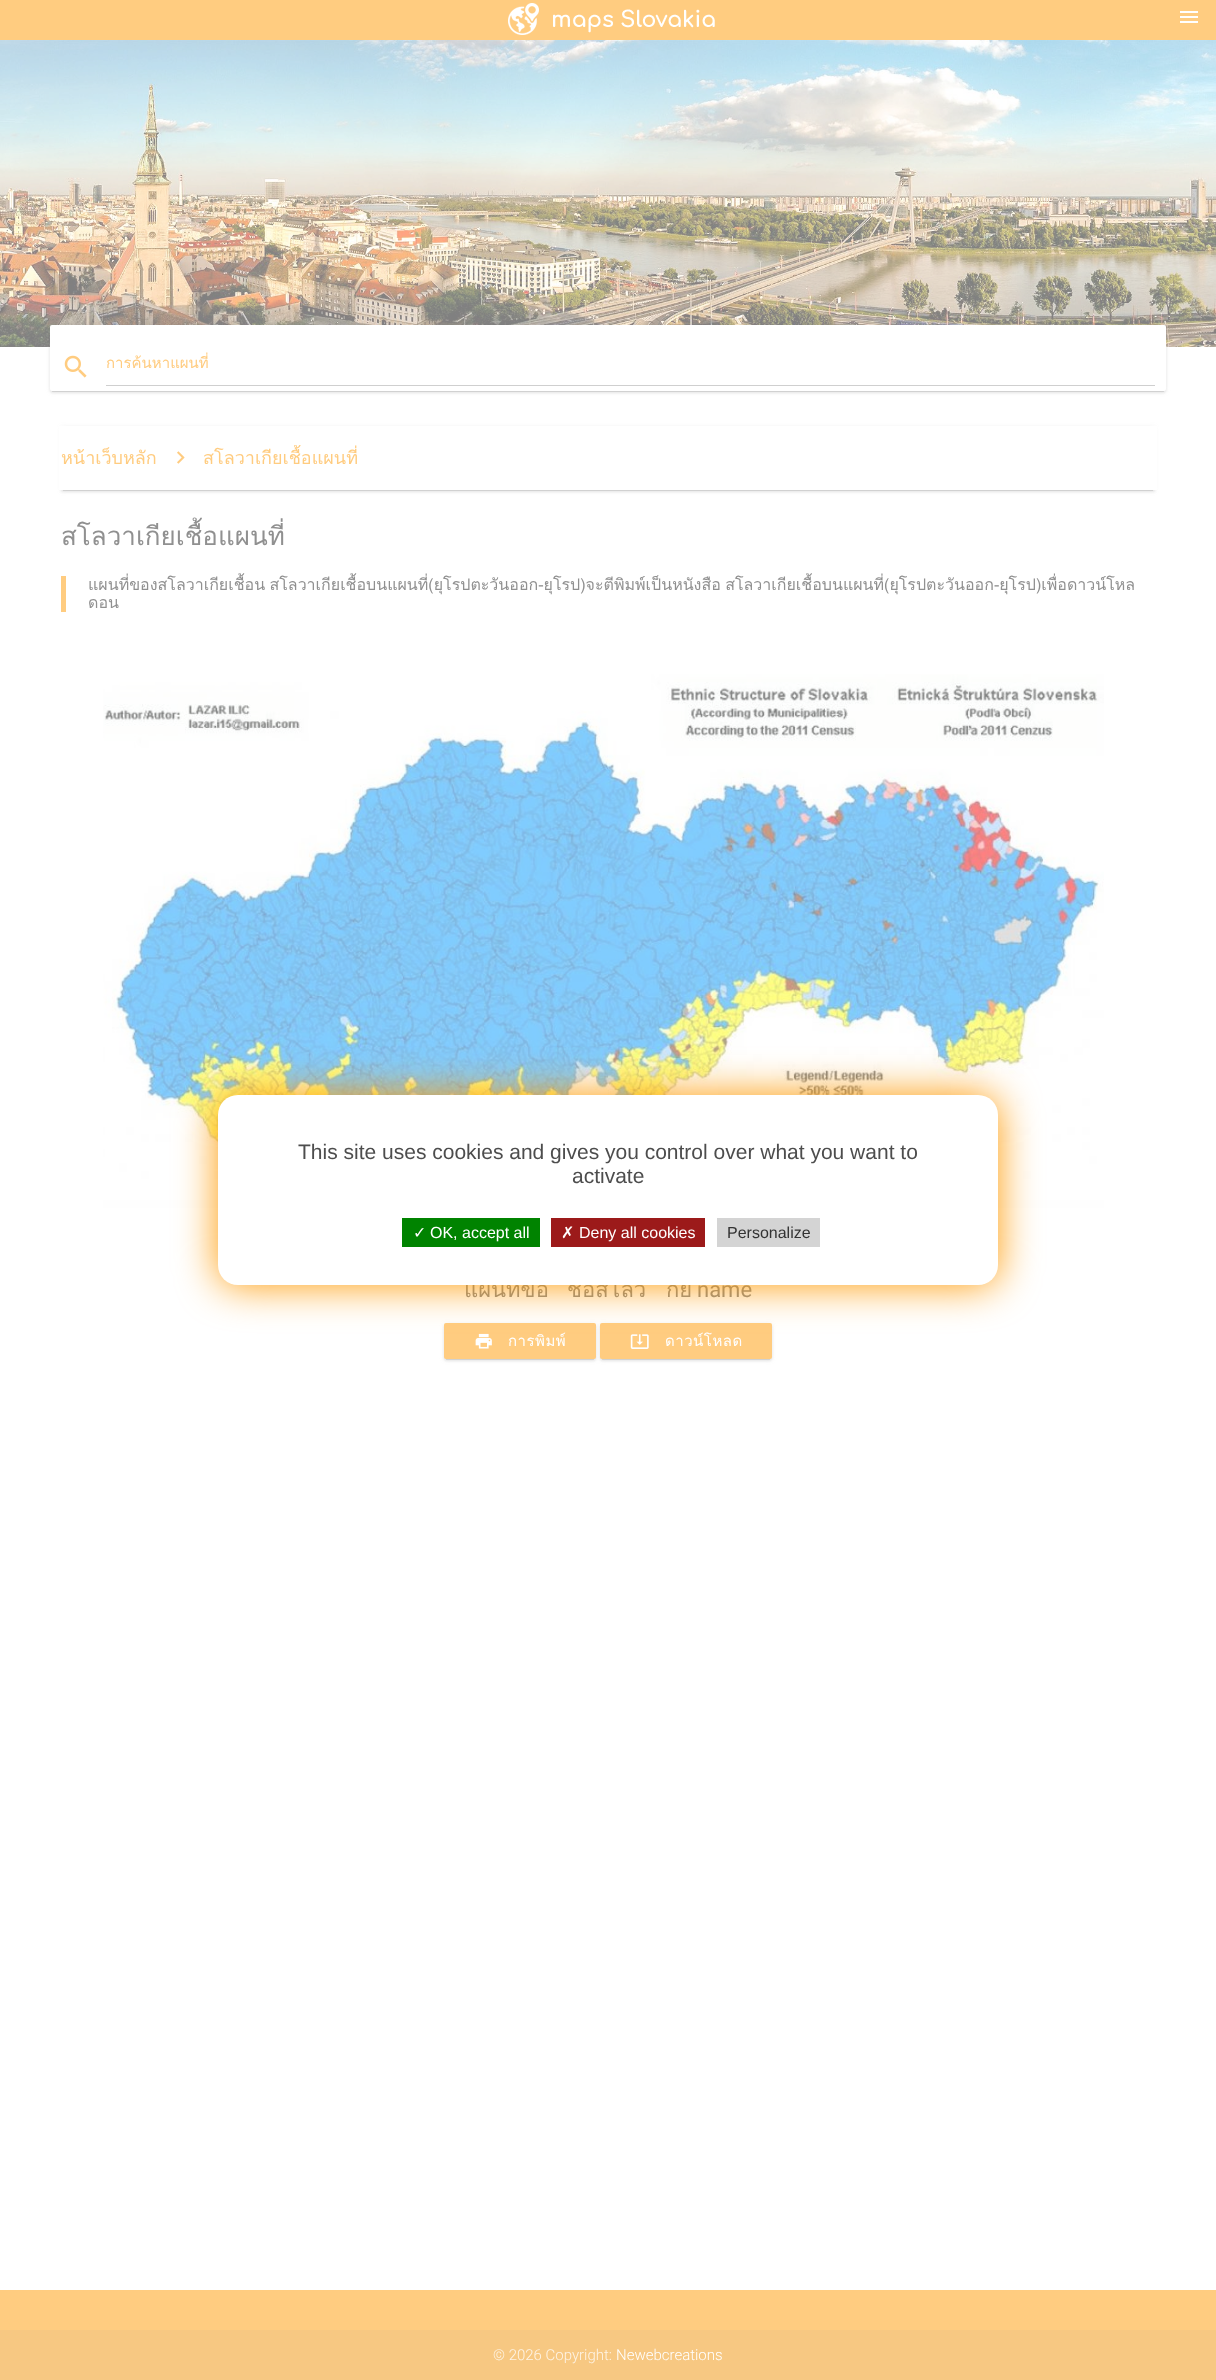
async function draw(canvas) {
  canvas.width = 1216;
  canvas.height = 2380;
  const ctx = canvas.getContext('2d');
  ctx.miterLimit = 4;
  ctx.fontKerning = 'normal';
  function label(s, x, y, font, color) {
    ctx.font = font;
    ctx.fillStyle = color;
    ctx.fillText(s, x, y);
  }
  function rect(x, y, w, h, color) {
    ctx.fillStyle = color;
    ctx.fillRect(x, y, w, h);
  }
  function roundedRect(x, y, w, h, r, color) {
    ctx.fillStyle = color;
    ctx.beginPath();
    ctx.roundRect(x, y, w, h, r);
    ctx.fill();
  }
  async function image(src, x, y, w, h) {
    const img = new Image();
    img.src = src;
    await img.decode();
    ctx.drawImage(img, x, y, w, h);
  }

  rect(0, 0, 1216, 2380, '#fff');
  rect(0, 0, 1216, 40, '#ffcc80');
  await image('assets/img1.png', 508, 3, 207, 32);
  await image('assets/img2.png', 1180, 11, 18, 12);
  await image('assets/img3.png', 0, 40, 1216, 307);
  ctx.fillStyle = '#80808033';
  ctx.filter = 'blur(0.5px)';
  ctx.beginPath();
  ctx.rect(52, 330, 1112, 62);
  ctx.fill();
  ctx.filter = 'none';
  ctx.fillStyle = '#8080801f';
  ctx.filter = 'blur(2.5px)';
  ctx.beginPath();
  ctx.roundRect(50, 326, 1116, 66, 2);
  ctx.fill();
  ctx.filter = 'none';
  ctx.fillStyle = '#80808024';
  ctx.filter = 'blur(1px)';
  ctx.beginPath();
  ctx.roundRect(50, 327, 1116, 66, 2);
  ctx.fill();
  ctx.filter = 'none';
  roundedRect(50, 325, 1116, 66, 2, '#fff');
  await image('assets/img4.png', 64, 355, 23, 23);
  label('การค้นหาแผนที่', 106, 368, '15px Loma', '#ffcc80');
  rect(106, 385, 1049, 1, '#cfcfcf');
  ctx.fillStyle = '#80808033';
  ctx.filter = 'blur(0.5px)';
  ctx.beginPath();
  ctx.rect(63, 431, 1090, 60);
  ctx.fill();
  ctx.filter = 'none';
  ctx.fillStyle = '#8080801f';
  ctx.filter = 'blur(2.5px)';
  ctx.beginPath();
  ctx.rect(61, 427, 1094, 64);
  ctx.fill();
  ctx.filter = 'none';
  ctx.fillStyle = '#80808024';
  ctx.filter = 'blur(1px)';
  ctx.beginPath();
  ctx.rect(61, 428, 1094, 64);
  ctx.fill();
  ctx.filter = 'none';
  rect(59, 426, 1098, 64, '#fff');
  label('หน้าเว็บหลัก', 61, 464, '18px Loma', '#ffcc80');
  await image('assets/img5.png', 177, 451, 8, 13);
  label('สโลวาเกียเชื้อแผนที่', 203, 464, '18px Loma', '#ffcc80');
  label('สโลวาเกียเชื้อแผนที่', 61, 545, '26px Loma', '#909090');
  rect(61, 576, 5, 36, '#ffcc80');
  ctx.wordSpacing = '-1px';
  label('แผนที่ของสโลวาเกียเชื้อน สโลวาเกียเชื้อบนแผนที่(ยุโรปตะวันออก-ยุโรป)จะตีพิมพ์เป็นหนังสือ สโลวาเกียเชื้อบนแผนที่(ยุโรปตะวันออก-ยุโรป)เพื่อดาวน์โหล', 88, 590, '16px Loma', '#909090');
  ctx.wordSpacing = '0px';
  label('ดอน', 88, 608, '16px Loma', '#909090');
  await image('assets/img6.png', 103, 674, 1001, 534);
  label('แผนที่ขอ', 464, 1297, '22px Loma', '#909090');
  label('ชื้อสโลว', 567, 1297, '22px Loma', '#909090');
  label('กีย', 666, 1297, '22px Loma', '#909090');
  label('name', 697, 1297, '22px Roboto', '#909090');
  ctx.fillStyle = '#80808033';
  ctx.filter = 'blur(0.5px)';
  ctx.beginPath();
  ctx.rect(446, 1328, 148, 32);
  ctx.fill();
  ctx.filter = 'none';
  ctx.fillStyle = '#8080801f';
  ctx.filter = 'blur(2.5px)';
  ctx.beginPath();
  ctx.roundRect(444, 1324, 152, 36, 2);
  ctx.fill();
  ctx.filter = 'none';
  ctx.fillStyle = '#80808024';
  ctx.filter = 'blur(1px)';
  ctx.beginPath();
  ctx.roundRect(444, 1325, 152, 36, 2);
  ctx.fill();
  ctx.filter = 'none';
  roundedRect(444, 1323, 152, 36, 2, '#ffcc80');
  await image('assets/img7.png', 475, 1333, 17, 16);
  ctx.letterSpacing = '0.5px';
  label('การพิมพ์', 508, 1346, '15px Loma', '#fff');
  ctx.fillStyle = '#80808033';
  ctx.filter = 'blur(0.5px)';
  ctx.beginPath();
  ctx.rect(602, 1328, 168, 32);
  ctx.fill();
  ctx.filter = 'none';
  ctx.fillStyle = '#8080801f';
  ctx.filter = 'blur(2.5px)';
  ctx.beginPath();
  ctx.roundRect(600, 1324, 172, 36, 2);
  ctx.fill();
  ctx.filter = 'none';
  ctx.fillStyle = '#80808024';
  ctx.filter = 'blur(1px)';
  ctx.beginPath();
  ctx.roundRect(600, 1325, 172, 36, 2);
  ctx.fill();
  ctx.filter = 'none';
  roundedRect(600, 1323, 172, 36, 2, '#ffcc80');
  await image('assets/img8.png', 630, 1334, 19, 15);
  label('ดาวน์โหลด', 665, 1346, '15px Loma', '#fff');
  ctx.fillStyle = '#ff9800';
  ctx.filter = 'blur(20px)';
  ctx.beginPath();
  ctx.roundRect(218, 1095, 780, 190, 20);
  ctx.fill();
  ctx.filter = 'none';
  roundedRect(218, 1095, 780, 190, 20, '#fff');
  ctx.letterSpacing = '0px';
  label('This site uses cookies and gives you control over what you want to', 298, 1159, '21px Liberation Sans', '#4d4d4d');
  label('activate', 572, 1183, '21px Liberation Sans', '#4d4d4d');
  rect(402, 1218, 138, 29, '#008300');
  label('✓', 413, 1238, '16px DejaVu Sans', '#fff');
  label('OK, accept all', 430, 1238, '16px Liberation Sans', '#fff');
  rect(551, 1218, 154, 29, '#9c1a1a');
  label('✗', 561, 1238, '16px DejaVu Sans', '#fff');
  label('Deny all cookies', 579, 1238, '16px Liberation Sans', '#fff');
  rect(717, 1218, 103, 29, '#d4d4d4');
  label('Personalize', 727, 1238, '16px Liberation Sans', '#333');
  rect(0, 2290, 1216, 40, '#ffcc80');
  rect(0, 2330, 1216, 50, '#f7c882');
  label('© 2026 Copyright:', 493, 2360, '300 15px Roboto', '#fef4e6');
  label('Newebcreations', 616, 2360, '300 15px Roboto', '#fff');
}

draw(document.querySelector('canvas'));
